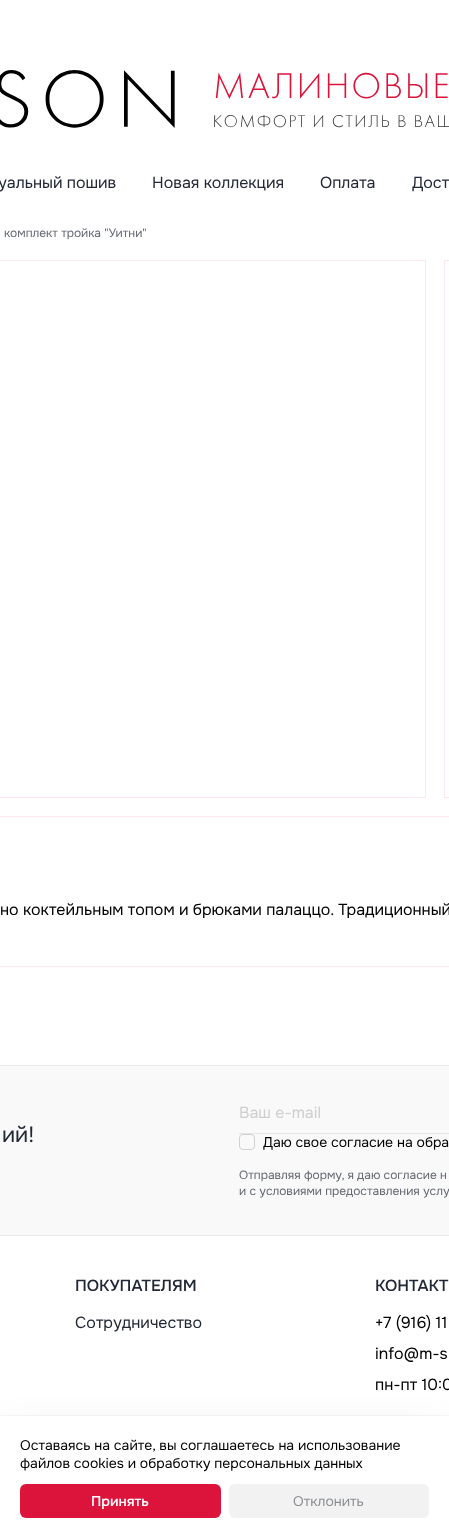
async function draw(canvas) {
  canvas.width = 449;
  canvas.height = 1538;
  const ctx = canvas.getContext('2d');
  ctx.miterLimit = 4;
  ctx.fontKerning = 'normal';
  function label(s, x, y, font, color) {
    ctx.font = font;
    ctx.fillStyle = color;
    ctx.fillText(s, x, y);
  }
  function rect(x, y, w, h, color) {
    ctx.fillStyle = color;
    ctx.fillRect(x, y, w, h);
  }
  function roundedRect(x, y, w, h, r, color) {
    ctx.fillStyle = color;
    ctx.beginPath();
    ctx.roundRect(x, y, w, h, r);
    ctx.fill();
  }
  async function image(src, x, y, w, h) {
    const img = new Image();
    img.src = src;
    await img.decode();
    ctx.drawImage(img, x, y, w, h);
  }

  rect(0, 0, 449, 1538, '#fff');
  await image('assets/img1.png', 0, 70, 449, 58);
  label('уальный пошив', -2, 188, '16px Onest', '#222936');
  label('Новая коллекция', 152, 188, '16px Onest', '#222936');
  label('Оплата', 320, 188, '16px Onest', '#222936');
  label('Дост', 412, 188, '16px Onest', '#222936');
  label('комплект тройка "Уитни"', 4, 237, '12px Onest', '#646972');
  ctx.strokeStyle = '#fce8ec';
  ctx.strokeRect(-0.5, 260.5, 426, 537);
  ctx.strokeRect(444.5, 260.5, 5, 537);
  ctx.strokeRect(-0.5, 816.5, 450, 150);
  label('но коктейльным топом и брюками палаццо. Традиционный', 0, 915, '16px Onest', '#000');
  rect(0, 1235, 449, 1, '#e9eaeb');
  rect(0, 1065, 449, 1, '#e9eaeb');
  rect(0, 1066, 449, 169, '#f9f9fa');
  label('ий!', 2, 1142, '22px Onest', '#222936');
  rect(239, 1133, 210, 1, '#e3e4e6');
  label('Ваш e-mail', 239, 1118, '16px Onest', '#cfcfcf');
  ctx.beginPath();
  ctx.roundRect(239.5, 1134.5, 15, 15, 3.5);
  ctx.strokeStyle = '#cfd0d2';
  ctx.stroke();
  label('Даю свое согласие на обра', 263, 1147, '14px Onest', '#000');
  label('Отправляя форму, я даю согласие н', 239, 1179, '12px Onest', '#646972');
  label('и с условиями предоставления услу', 239, 1195, '12px Onest', '#646972');
  label('ПОКУПАТЕЛЯМ', 75, 1291, '500 16px Onest', '#222936');
  label('Сотрудничество', 75, 1328, '16px Onest', '#222936');
  label('КОНТАКТ', 375, 1291, '500 16px Onest', '#222936');
  label('+7 (916) 11', 375, 1328, '16px Onest', '#000');
  label('info@m-s', 375, 1359, '16px Onest', '#000');
  label('пн-пт 10:0', 375, 1390, '16px Onest', '#000');
  ctx.strokeStyle = '#272b330a';
  ctx.strokeRect(-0.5, 1415.5, 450, 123);
  ctx.fillStyle = '#272b3333';
  ctx.filter = 'blur(20px)';
  ctx.beginPath();
  ctx.rect(10, 1438, 429, 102);
  ctx.fill();
  ctx.filter = 'none';
  rect(0, 1416, 449, 122, '#fff');
  label('Оставаясь на сайте, вы соглашаетесь на использование', 20, 1450, '14px Onest', '#000');
  label('файлов cookies и обработку персональных данных', 20, 1468, '14px Onest', '#000');
  roundedRect(20, 1484, 201, 34, 6, '#dc143c');
  label('Принять', 91, 1506, '500 14px Onest', '#fff');
  roundedRect(229, 1484, 200, 34, 6, '#f2f2f3');
  label('Отклонить', 293, 1506, '14px Onest', '#8d8f93');
}

draw(document.querySelector('canvas'));
